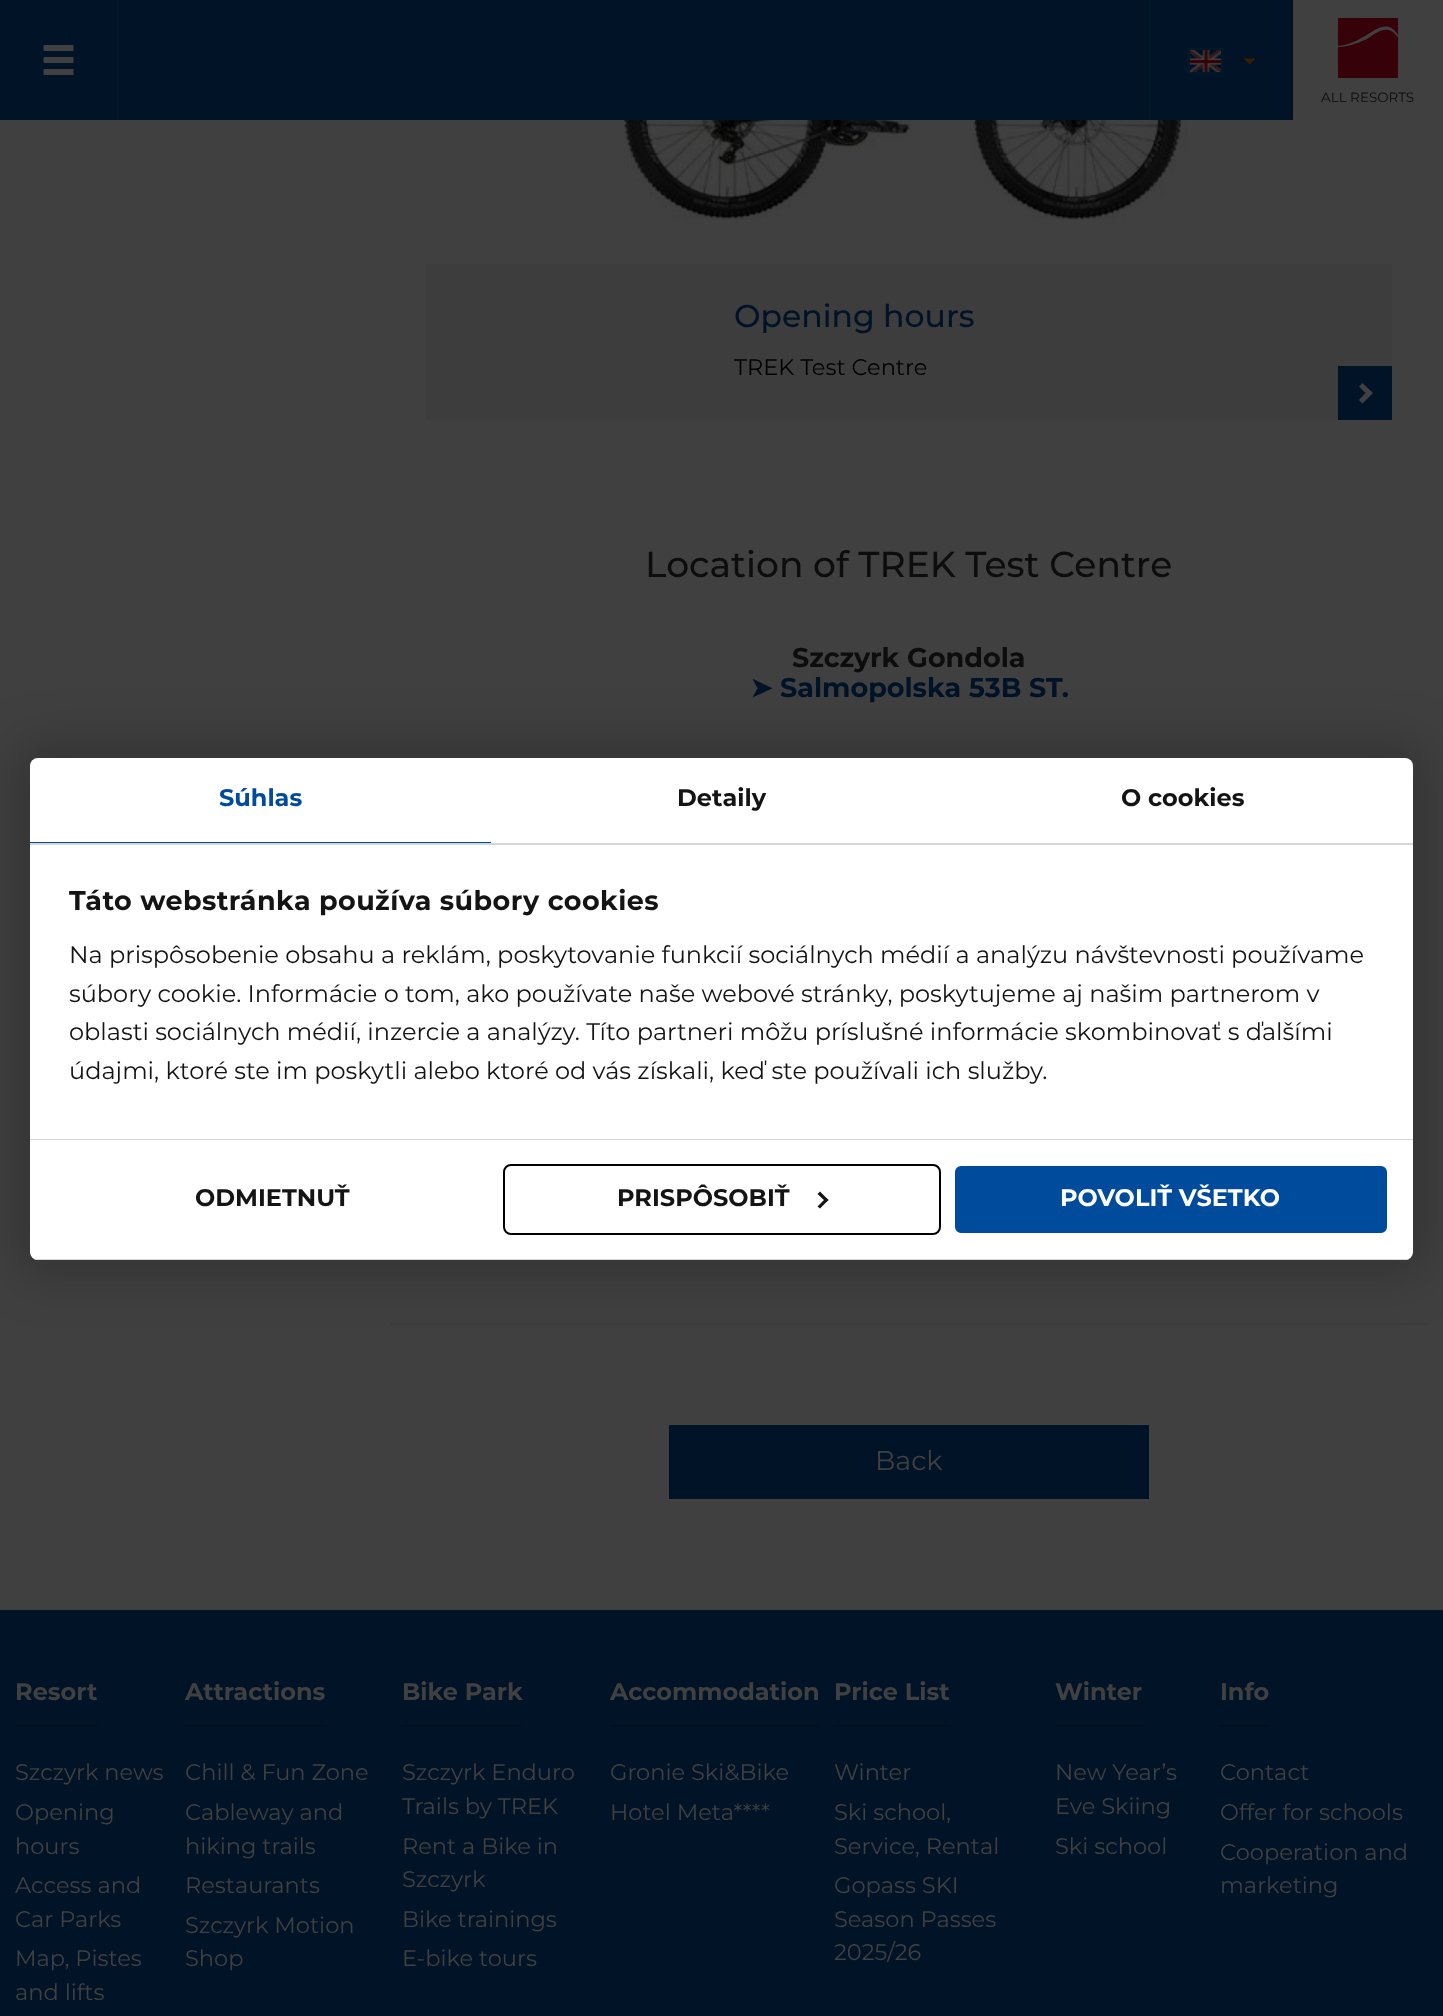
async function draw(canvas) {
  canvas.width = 1443;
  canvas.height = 2016;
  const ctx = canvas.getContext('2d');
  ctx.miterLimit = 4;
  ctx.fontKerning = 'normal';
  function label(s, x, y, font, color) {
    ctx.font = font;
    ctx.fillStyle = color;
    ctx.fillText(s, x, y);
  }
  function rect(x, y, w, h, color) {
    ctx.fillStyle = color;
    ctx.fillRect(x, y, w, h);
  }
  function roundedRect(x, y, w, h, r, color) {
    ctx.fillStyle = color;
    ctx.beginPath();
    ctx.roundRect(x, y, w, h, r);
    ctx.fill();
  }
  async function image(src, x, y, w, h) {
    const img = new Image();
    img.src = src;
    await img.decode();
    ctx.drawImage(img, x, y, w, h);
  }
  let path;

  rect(0, 0, 1443, 2016, '#404040');
  rect(0, 0, 1292, 120, '#001327');
  rect(117, 0, 2, 120, '#001925');
  await image('assets/img1.png', 43, 45, 31, 30);
  rect(1149, 0, 2, 120, '#001925');
  await image('assets/img2.png', 1187, 48, 34, 26);
  ctx.strokeStyle = '#001925';
  ctx.lineWidth = 2;
  ctx.strokeRect(1189, 49, 33, 24);
  await image('assets/img3.png', 1244, 58, 11, 7);
  rect(1292, 0, 1, 120, '#0d0d0d');
  rect(1338, 18, 60, 60, '#360109');
  ctx.fillStyle = '#404040';
  path = new Path2D('M1398 35C1387 18 1375 31 1363 37C1355 42 1347 45 1338 46V47C1348 47 1358 43 1367 39C1375 34 1383 26 1393 32L1398 37Z');
  ctx.fill(path);
  label('ALL RESORTS', 1321, 102, '100 13.5px "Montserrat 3"', '#0d0d0d');
  await image('assets/img4.png', 624, 120, 564, 100);
  rect(426, 264, 966, 156, '#3d3d3d');
  label('Opening hours', 734, 327, '100 31.5px Montserrat', '#001327');
  label('TREK Test Centre', 734, 375, '100 22.5px "Montserrat 3"', '#000');
  rect(1338, 366, 54, 54, '#001327');
  ctx.fillStyle = '#404040';
  path = new Path2D('M1373 393L1362.5 403.5L1359 400L1365.5 393L1359 386.5L1362.5 383Z');
  ctx.fill(path);
  label('Location of TREK Test Centre', 645, 577, '100 36px Montserrat', '#0d0d0d');
  label('Szczyrk Gondola', 792, 667, '100 27px "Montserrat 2"', '#0d0d0d');
  label('➤', 750, 697, 'bold 27px DejaVu Sans', '#001327');
  label('Salmopolska 53B ST.', 780, 697, '100 27px "Montserrat 2"', '#001327');
  rect(390, 1323, 1038, 2, '#3c3c3c');
  rect(669, 1425, 480, 74, '#001327');
  label('Back', 875, 1470, '100 27px "Montserrat 3"', '#404040');
  ctx.fillStyle = '#00000033';
  ctx.filter = 'blur(26px)';
  ctx.beginPath();
  ctx.roundRect(15, 743, 1413, 532, 23);
  ctx.fill();
  ctx.filter = 'none';
  roundedRect(30, 758, 1383, 502, 8, '#fff');
  rect(30, 843, 1383, 2, '#d6d6d6');
  rect(30, 842, 461, 1, '#004b9b');
  label('Súhlas', 219, 806, '100 24px "Montserrat 2"', '#004b9b');
  label('Detaily', 677, 806, '100 24px "Montserrat 2"', '#141414');
  label('O cookies', 1121, 806, '100 24px "Montserrat 2"', '#141414');
  rect(30, 1139, 1383, 1, '#d6d6d6');
  ctx.letterSpacing = '0.4px';
  label('Táto webstránka používa súbory cookies', 69, 910, '100 27px "Montserrat 2"', '#141414');
  ctx.letterSpacing = '0px';
  label('Na prispôsobenie obsahu a reklám, poskytovanie funkcií sociálnych médií a analýzu návštevnosti používame', 69, 963, '100 24px "Montserrat 3"', '#141414');
  label('súbory cookie. Informácie o tom, ako používate naše webové stránky, poskytujeme aj našim partnerom v', 69, 1002, '100 24px "Montserrat 3"', '#141414');
  label('oblasti sociálnych médií, inzercie a analýzy. Títo partneri môžu príslušné informácie skombinovať s ďalšími', 69, 1040, '100 24px "Montserrat 3"', '#141414');
  label('údajmi, ktoré ste im poskytli alebo ktoré od vás získali, keď ste používali ich služby.', 69, 1079, '100 24px "Montserrat 3"', '#141414');
  ctx.save();
  ctx.beginPath();
  ctx.roundRect(30, 758, 1383, 502, 8);
  ctx.clip();
  rect(30, 1259, 1383, 1, '#d6d6d6');
  ctx.restore();
  label('ODMIETNUŤ', 195, 1206, '100 24px "Montserrat 2"', '#141414');
  ctx.beginPath();
  ctx.roundRect(504, 1165, 436, 69, 7);
  ctx.strokeStyle = '#000';
  ctx.stroke();
  label('PRISPÔSOBIŤ', 617, 1206, '100 24px "Montserrat 2"', '#141414');
  path = new Path2D('M820 1191.5L828.5 1200L826 1202L817.5 1194Z');
  ctx.fill(path);
  path = new Path2D('M826 1198L828.5 1200L820 1208.5L817.5 1206.5Z');
  ctx.fill(path);
  ctx.fillStyle = '#004b9b';
  ctx.beginPath();
  ctx.roundRect(954, 1165, 434, 69, 7);
  ctx.fill();
  ctx.strokeStyle = '#fff';
  ctx.stroke();
  label('POVOLIŤ VŠETKO', 1060, 1206, '100 24px "Montserrat 2"', '#fff');
  rect(0, 1610, 1443, 406, '#001327');
  rect(15, 1725, 83, 2, '#001020');
  label('Resort', 15, 1700, '100 24px "Montserrat 2"', '#404040');
  label('Szczyrk news', 15, 1780, '100 22.5px "Montserrat 3"', '#404040');
  label('Opening', 15, 1820, '100 22.5px "Montserrat 3"', '#404040');
  label('hours', 15, 1854, '100 22.5px "Montserrat 3"', '#404040');
  label('Access and', 15, 1893, '100 22.5px "Montserrat 3"', '#404040');
  label('Car Parks', 15, 1927, '100 22.5px "Montserrat 3"', '#404040');
  label('Map, Pistes', 15, 1966, '100 22.5px "Montserrat 3"', '#404040');
  label('and lifts', 15, 2000, '100 22.5px "Montserrat 3"', '#404040');
  rect(185, 1725, 141, 2, '#001020');
  label('Attractions', 185, 1700, '100 24px "Montserrat 2"', '#404040');
  label('Chill & Fun Zone', 185, 1780, '100 22.5px "Montserrat 3"', '#404040');
  label('Cableway and', 185, 1820, '100 22.5px "Montserrat 3"', '#404040');
  label('hiking trails', 185, 1854, '100 22.5px "Montserrat 3"', '#404040');
  label('Restaurants', 185, 1893, '100 22.5px "Montserrat 3"', '#404040');
  label('Szczyrk Motion', 185, 1933, '100 22.5px "Montserrat 3"', '#404040');
  label('Shop', 185, 1966, '100 22.5px "Montserrat 3"', '#404040');
  rect(402, 1725, 120, 2, '#001020');
  label('Bike Park', 402, 1700, '100 24px "Montserrat 2"', '#404040');
  label('Szczyrk Enduro', 402, 1780, '100 22.5px "Montserrat 3"', '#404040');
  label('Trails by TREK', 402, 1814, '100 22.5px "Montserrat 3"', '#404040');
  label('Rent a Bike in', 402, 1854, '100 22.5px "Montserrat 3"', '#404040');
  label('Szczyrk', 402, 1887, '100 22.5px "Montserrat 3"', '#404040');
  label('Bike trainings', 402, 1927, '100 22.5px "Montserrat 3"', '#404040');
  label('E-bike tours', 402, 1966, '100 22.5px "Montserrat 3"', '#404040');
  rect(611, 1725, 208, 2, '#001020');
  label('Accommodation', 610, 1700, '100 24px "Montserrat 2"', '#404040');
  label('Gronie Ski&Bike', 610, 1780, '100 22.5px "Montserrat 3"', '#404040');
  label('Hotel Meta****', 610, 1820, '100 22.5px "Montserrat 3"', '#404040');
  rect(834, 1725, 116, 2, '#001020');
  label('Price List', 834, 1700, '100 24px "Montserrat 2"', '#404040');
  label('Winter', 834, 1780, '100 22.5px "Montserrat 3"', '#404040');
  label('Ski school,', 834, 1820, '100 22.5px "Montserrat 3"', '#404040');
  label('Service, Rental', 834, 1854, '100 22.5px "Montserrat 3"', '#404040');
  label('Gopass SKI', 834, 1893, '100 22.5px "Montserrat 3"', '#404040');
  label('Season Passes', 834, 1927, '100 22.5px "Montserrat 3"', '#404040');
  label('2025/26', 834, 1960, '100 22.5px "Montserrat 3"', '#404040');
  rect(1056, 1725, 87, 2, '#001020');
  label('Winter', 1055, 1700, '100 24px "Montserrat 2"', '#404040');
  label('New Year’s', 1055, 1780, '100 22.5px "Montserrat 3"', '#404040');
  label('Eve Skiing', 1055, 1814, '100 22.5px "Montserrat 3"', '#404040');
  label('Ski school', 1055, 1854, '100 22.5px "Montserrat 3"', '#404040');
  rect(1220, 1725, 49, 2, '#001020');
  label('Info', 1220, 1700, '100 24px "Montserrat 2"', '#404040');
  label('Contact', 1220, 1780, '100 22.5px "Montserrat 3"', '#404040');
  label('Offer for schools', 1220, 1820, '100 22.5px "Montserrat 3"', '#404040');
  label('Cooperation and', 1220, 1860, '100 22.5px "Montserrat 3"', '#404040');
  label('marketing', 1220, 1893, '100 22.5px "Montserrat 3"', '#404040');
}

draw(document.querySelector('canvas'));
